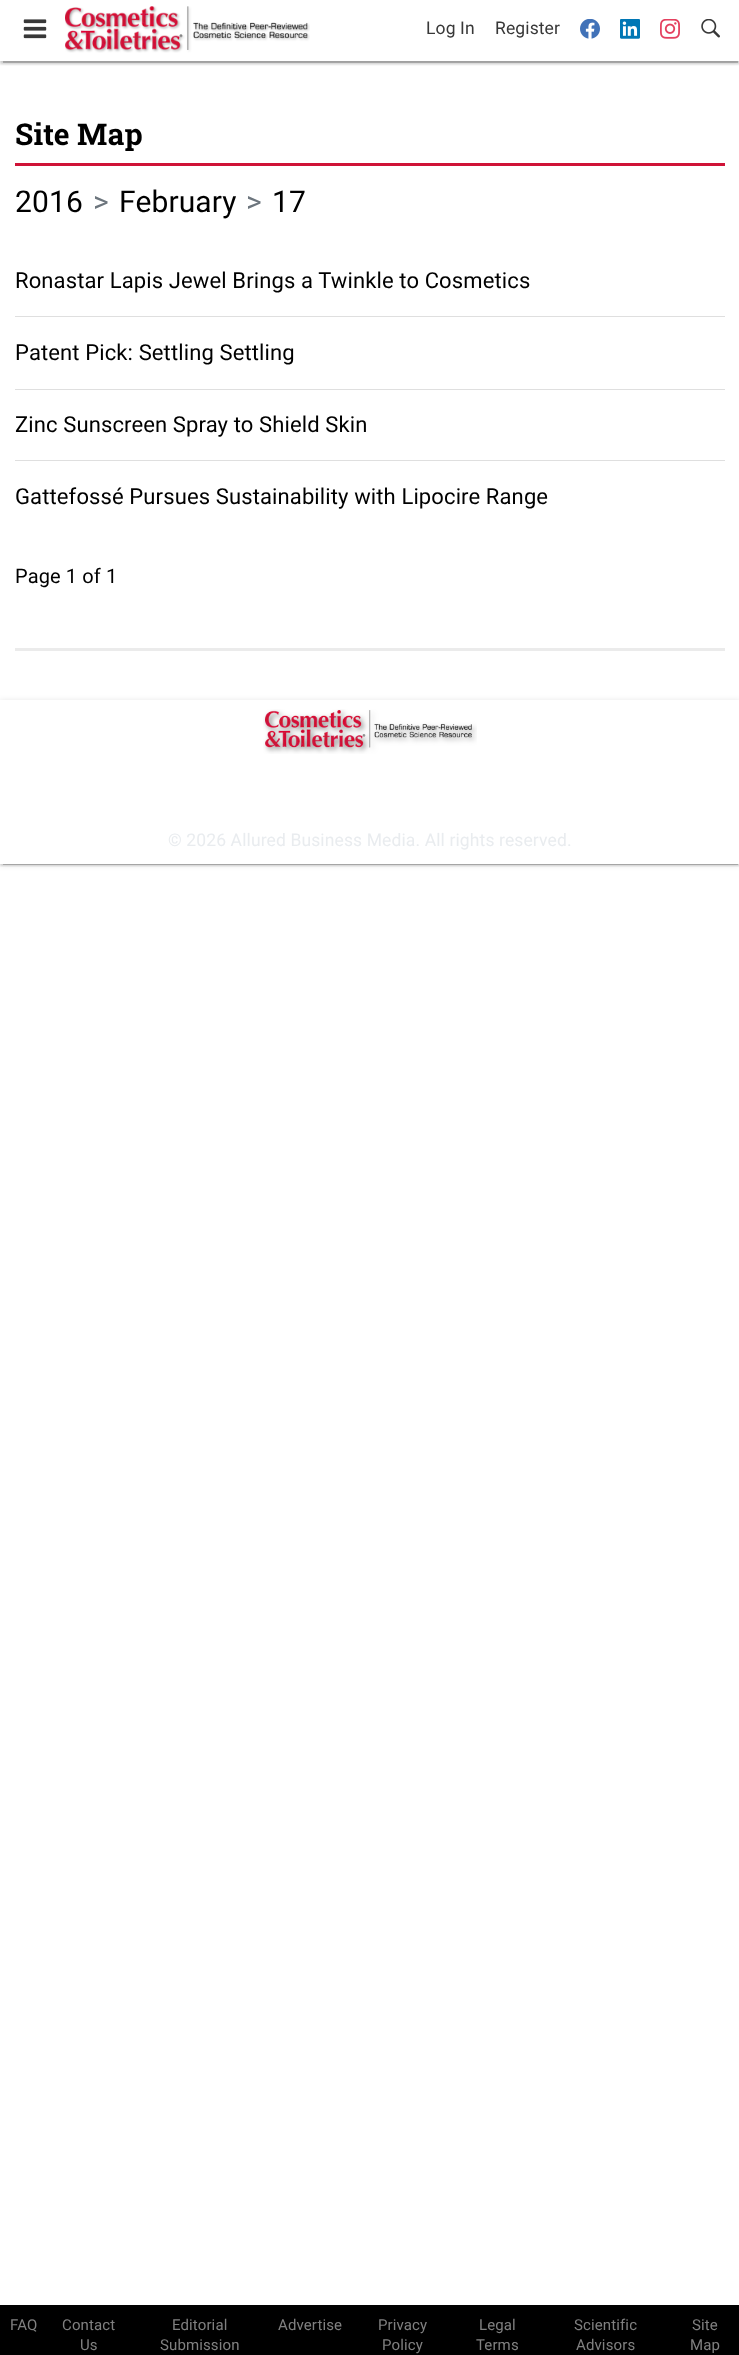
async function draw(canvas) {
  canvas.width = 739;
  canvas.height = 2355;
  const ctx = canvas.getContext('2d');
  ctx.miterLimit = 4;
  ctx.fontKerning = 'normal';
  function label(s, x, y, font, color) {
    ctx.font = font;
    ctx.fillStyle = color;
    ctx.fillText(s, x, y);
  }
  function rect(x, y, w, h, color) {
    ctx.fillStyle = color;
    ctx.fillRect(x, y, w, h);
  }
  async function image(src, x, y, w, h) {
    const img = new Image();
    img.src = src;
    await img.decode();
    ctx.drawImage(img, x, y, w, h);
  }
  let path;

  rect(0, 0, 739, 2355, '#fff');
  ctx.save();
  ctx.beginPath();
  ctx.rect(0, 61, 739, 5);
  ctx.clip();
  ctx.fillStyle = '#0000001f';
  ctx.filter = 'blur(3px)';
  ctx.beginPath();
  ctx.rect(0, 1, 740, 62);
  ctx.fill();
  ctx.filter = 'none';
  ctx.restore();
  ctx.save();
  ctx.beginPath();
  ctx.rect(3, 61, 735, 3);
  ctx.clip();
  ctx.fillStyle = '#00000033';
  ctx.filter = 'blur(0.5px)';
  ctx.beginPath();
  ctx.rect(3, 6, 735, 57);
  ctx.fill();
  ctx.filter = 'none';
  ctx.restore();
  ctx.save();
  ctx.beginPath();
  ctx.rect(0, 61, 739, 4);
  ctx.clip();
  ctx.fillStyle = '#00000024';
  ctx.filter = 'blur(1px)';
  ctx.beginPath();
  ctx.rect(0, 3, 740, 61);
  ctx.fill();
  ctx.filter = 'none';
  ctx.restore();
  await image('assets/img1.png', 23, 19, 24, 20);
  await image('assets/img2.png', 65, 6, 245, 47);
  ctx.letterSpacing = '0.12px';
  label('Log In', 426, 34, '17.5px Roboto', '#383838');
  label('Register', 495, 34, '17.5px Roboto', '#383838');
  await image('assets/img3.png', 580, 19, 20, 20);
  await image('assets/img4.png', 620, 19, 20, 20);
  await image('assets/img5.png', 660, 19, 20, 20);
  await image('assets/img6.png', 701, 19, 19, 19);
  rect(15, 648, 710, 3, '#ebebeb');
  rect(15, 163, 710, 3, '#cf1337');
  label('Site Map', 15, 145, 'bold 30px Roboto Slab', '#000');
  label('2016', 15, 212, '30px Roboto', '#000');
  label('>', 93, 212, '30px Roboto', '#6c757d');
  label('February', 119, 212, '30px Roboto', '#000');
  label('>', 246, 212, '30px Roboto', '#6c757d');
  label('17', 272, 212, '30px Roboto', '#000');
  rect(15, 316, 710, 1, '#dfdfdf');
  label('Ronastar Lapis Jewel Brings a Twinkle to Cosmetics', 15, 288, '22px Roboto', '#000');
  rect(15, 389, 710, 1, '#dfdfdf');
  label('Patent Pick: Settling Settling', 15, 360, '22px Roboto', '#000');
  rect(15, 460, 710, 1, '#dfdfdf');
  label('Zinc Sunscreen Spray to Shield Skin', 15, 432, '22px Roboto', '#000');
  label('Gattefossé Pursues Sustainability with Lipocire Range', 15, 504, '22px Roboto', '#000');
  label('Page 1 of 1', 15, 583, '20px Roboto', '#000');
  ctx.save();
  path = new Path2D('M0 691H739V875H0ZM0 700H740V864H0Z');
  ctx.clip(path, 'evenodd');
  ctx.fillStyle = '#0000001f';
  ctx.filter = 'blur(3px)';
  ctx.beginPath();
  ctx.rect(0, 701, 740, 164);
  ctx.fill();
  ctx.filter = 'none';
  ctx.restore();
  ctx.save();
  ctx.beginPath();
  ctx.rect(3, 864, 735, 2);
  ctx.clip();
  ctx.fillStyle = '#00000033';
  ctx.filter = 'blur(0.5px)';
  ctx.beginPath();
  ctx.rect(3, 706, 735, 159);
  ctx.fill();
  ctx.filter = 'none';
  ctx.restore();
  ctx.save();
  ctx.beginPath();
  ctx.rect(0, 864, 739, 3);
  ctx.clip();
  ctx.fillStyle = '#00000024';
  ctx.filter = 'blur(1px)';
  ctx.beginPath();
  ctx.rect(0, 703, 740, 163);
  ctx.fill();
  ctx.filter = 'none';
  ctx.restore();
  await image('assets/img7.png', 263, 709, 214, 45);
  rect(0, 863, 739, 1, '#fff');
  label('© 2026 Allured Business Media. All rights reserved.', 168, 846, '17.5px Roboto', '#e9ecef');
  rect(0, 2305, 739, 50, '#000');
  label('FAQ', 10, 2330, '15px Roboto', '#808080');
  label('Contact', 62, 2330, '15px Roboto', '#808080');
  label('Us', 80, 2350, '15px Roboto', '#808080');
  label('Editorial', 172, 2330, '15px Roboto', '#808080');
  label('Submission', 160, 2350, '15px Roboto', '#808080');
  label('Advertise', 278, 2330, '15px Roboto', '#808080');
  label('Privacy', 378, 2330, '15px Roboto', '#808080');
  label('Policy', 382, 2350, '15px Roboto', '#808080');
  label('Legal', 479, 2330, '15px Roboto', '#808080');
  label('Terms', 476, 2350, '15px Roboto', '#808080');
  label('Scientific', 574, 2330, '15px Roboto', '#808080');
  label('Advisors', 576, 2350, '15px Roboto', '#808080');
  label('Site', 692, 2330, '15px Roboto', '#808080');
  label('Map', 690, 2350, '15px Roboto', '#808080');
}

draw(document.querySelector('canvas'));
